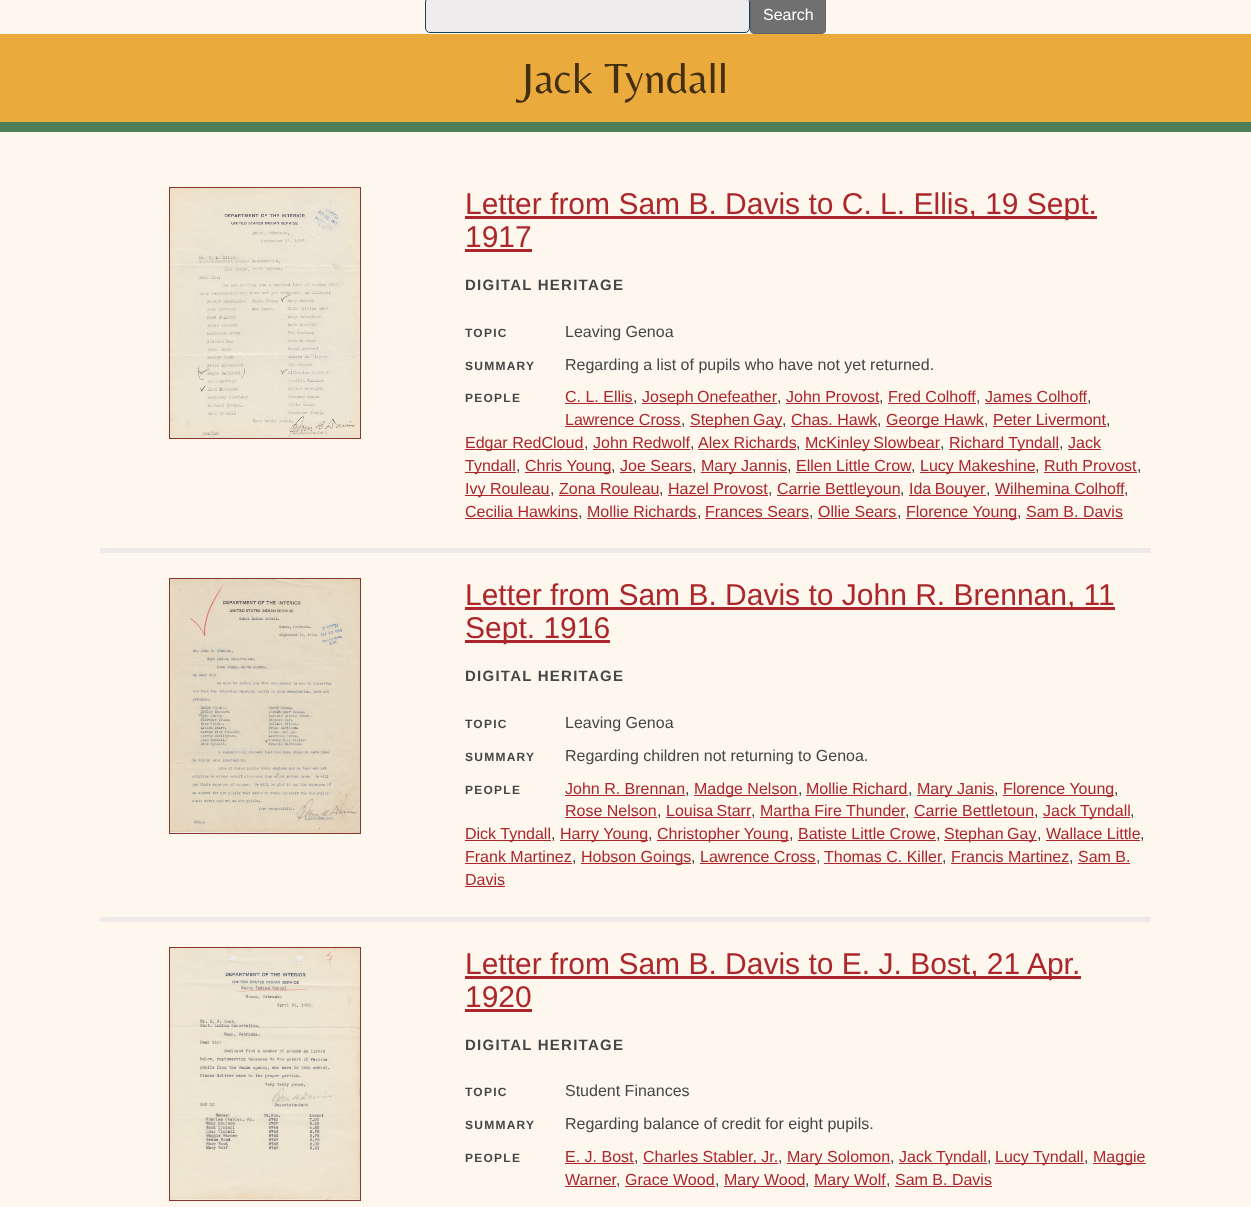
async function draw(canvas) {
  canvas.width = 1251;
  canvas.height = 1207;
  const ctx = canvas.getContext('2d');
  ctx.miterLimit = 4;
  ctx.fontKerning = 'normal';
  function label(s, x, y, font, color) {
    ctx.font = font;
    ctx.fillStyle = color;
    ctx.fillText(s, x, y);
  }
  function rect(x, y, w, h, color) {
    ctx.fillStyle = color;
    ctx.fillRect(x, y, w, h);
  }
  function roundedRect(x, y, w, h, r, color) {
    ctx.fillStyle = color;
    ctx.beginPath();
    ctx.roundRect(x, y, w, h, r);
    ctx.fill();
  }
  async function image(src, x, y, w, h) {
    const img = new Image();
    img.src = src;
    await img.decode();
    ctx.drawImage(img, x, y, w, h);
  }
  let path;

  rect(0, 0, 1251, 1207, '#fdf7ed');
  roundedRect(425, -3, 325, 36, 5, '#eeecec');
  ctx.fillStyle = '#dcdada';
  path = new Path2D('M430-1H745C747-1 749 1 749 3V2C749 0 747-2 745-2H430C428-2 426 0 426 2V3C426 1 428-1 430-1Z');
  ctx.fill(path);
  ctx.beginPath();
  ctx.roundRect(425.5, -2.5, 324, 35, 4.5);
  ctx.strokeStyle = '#124559';
  ctx.stroke();
  ctx.fillStyle = '#707070';
  ctx.beginPath();
  ctx.roundRect(750.5, -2.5, 75, 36, 3.5);
  ctx.fill();
  ctx.strokeStyle = '#636363';
  ctx.stroke();
  label('Search', 763, 20, '16px Liberation Sans', '#fff');
  rect(0, 34, 1251, 88, '#ebab3c');
  rect(0, 122, 1251, 10, '#4f7f58');
  label('Jack Tyndall', 522, 93, '44px Belleza', '#423010');
  rect(100, 548, 1051, 5, '#eeeaea');
  ctx.strokeStyle = '#8a362e';
  ctx.strokeRect(169.5, 187.5, 191, 251);
  await image('assets/img1.png', 170, 188, 190, 250);
  rect(465, 216, 632, 3, '#ac262b');
  label('Letter from Sam B. Davis to C. L. Ellis, 19 Sept.', 465, 214, '30px Liberation Sans', '#ac262b');
  label('1917', 465, 247, '30px Liberation Sans', '#ac262b');
  rect(465, 249, 67, 3, '#ac262b');
  ctx.letterSpacing = '1.25px';
  label('DIGITAL HERITAGE', 465, 290, 'bold 15px Liberation Sans', '#464646');
  label('TOPIC', 465, 337, 'bold 12px Liberation Sans', '#464646');
  ctx.letterSpacing = '0px';
  label('Leaving Genoa', 565, 337, '16px Liberation Sans', '#464646');
  ctx.letterSpacing = '1.25px';
  label('SUMMARY', 465, 370, 'bold 12px Liberation Sans', '#464646');
  ctx.letterSpacing = '0px';
  label('Regarding a list of pupils who have not yet returned.', 565, 370, '16px Liberation Sans', '#464646');
  ctx.letterSpacing = '1.25px';
  label('PEOPLE', 465, 402, 'bold 12px Liberation Sans', '#464646');
  ctx.letterSpacing = '0px';
  label('C. L. Ellis', 565, 402, '16px Liberation Sans', '#ac262b');
  rect(565, 403, 68, 1, '#ac262b');
  label(',', 633, 402, '16px Liberation Sans', '#464646');
  rect(642, 403, 135, 1, '#ac262b');
  ctx.wordSpacing = '-1px';
  label('Joseph Onefeather', 642, 402, '16px Liberation Sans', '#ac262b');
  ctx.wordSpacing = '0px';
  label(',', 777, 402, '16px Liberation Sans', '#464646');
  label('John Provost', 786, 402, '16px Liberation Sans', '#ac262b');
  rect(786, 403, 93, 1, '#ac262b');
  label(',', 879, 402, '16px Liberation Sans', '#464646');
  label('Fred Colhoff', 888, 402, '16px Liberation Sans', '#ac262b');
  rect(888, 403, 88, 1, '#ac262b');
  label(',', 976, 402, '16px Liberation Sans', '#464646');
  label('James Colhoff', 985, 402, '16px Liberation Sans', '#ac262b');
  rect(985, 403, 102, 1, '#ac262b');
  label(',', 1087, 402, '16px Liberation Sans', '#464646');
  label('Lawrence Cross', 565, 425, '16px Liberation Sans', '#ac262b');
  rect(565, 426, 116, 1, '#ac262b');
  label(',', 681, 425, '16px Liberation Sans', '#464646');
  rect(690, 426, 92, 1, '#ac262b');
  ctx.wordSpacing = '-1px';
  label('Stephen Gay', 690, 425, '16px Liberation Sans', '#ac262b');
  ctx.wordSpacing = '0px';
  label(',', 782, 425, '16px Liberation Sans', '#464646');
  label('Chas. Hawk', 791, 425, '16px Liberation Sans', '#ac262b');
  rect(791, 426, 86, 1, '#ac262b');
  label(',', 877, 425, '16px Liberation Sans', '#464646');
  rect(886, 426, 98, 1, '#ac262b');
  label('George Hawk', 886, 425, '16px Liberation Sans', '#ac262b');
  label(',', 984, 425, '16px Liberation Sans', '#464646');
  label('Peter Livermont', 993, 425, '16px Liberation Sans', '#ac262b');
  rect(993, 426, 113, 1, '#ac262b');
  label(',', 1106, 425, '16px Liberation Sans', '#464646');
  rect(465, 449, 119, 1, '#ac262b');
  label('Edgar RedCloud', 465, 448, '16px Liberation Sans', '#ac262b');
  label(',', 584, 448, '16px Liberation Sans', '#464646');
  label('John Redwolf', 593, 448, '16px Liberation Sans', '#ac262b');
  rect(593, 449, 97, 1, '#ac262b');
  label(',', 690, 448, '16px Liberation Sans', '#464646');
  label('Alex Richards', 698, 448, '16px Liberation Sans', '#ac262b');
  rect(698, 449, 98, 1, '#ac262b');
  label(',', 796, 448, '16px Liberation Sans', '#464646');
  rect(805, 449, 135, 1, '#ac262b');
  ctx.wordSpacing = '-1px';
  label('McKinley Slowbear', 805, 448, '16px Liberation Sans', '#ac262b');
  ctx.wordSpacing = '0px';
  label(',', 940, 448, '16px Liberation Sans', '#464646');
  rect(949, 449, 110, 1, '#ac262b');
  label('Richard Tyndall', 949, 448, '16px Liberation Sans', '#ac262b');
  label(',', 1059, 448, '16px Liberation Sans', '#464646');
  label('Jack', 1068, 448, '16px Liberation Sans', '#ac262b');
  rect(1068, 449, 33, 1, '#ac262b');
  rect(465, 472, 51, 1, '#ac262b');
  label('Tyndall', 465, 471, '16px Liberation Sans', '#ac262b');
  label(',', 516, 471, '16px Liberation Sans', '#464646');
  rect(525, 472, 86, 1, '#ac262b');
  label('Chris Young', 525, 471, '16px Liberation Sans', '#ac262b');
  label(',', 611, 471, '16px Liberation Sans', '#464646');
  label('Joe Sears', 620, 471, '16px Liberation Sans', '#ac262b');
  rect(620, 472, 72, 1, '#ac262b');
  label(',', 692, 471, '16px Liberation Sans', '#464646');
  rect(701, 472, 86, 1, '#ac262b');
  label('Mary Jannis', 701, 471, '16px Liberation Sans', '#ac262b');
  label(',', 787, 471, '16px Liberation Sans', '#464646');
  label('Ellen Little Crow', 796, 471, '16px Liberation Sans', '#ac262b');
  rect(796, 472, 115, 1, '#ac262b');
  label(',', 911, 471, '16px Liberation Sans', '#464646');
  rect(920, 472, 115, 1, '#ac262b');
  label('Lucy Makeshine', 920, 471, '16px Liberation Sans', '#ac262b');
  label(',', 1035, 471, '16px Liberation Sans', '#464646');
  label('Ruth Provost', 1044, 471, '16px Liberation Sans', '#ac262b');
  rect(1044, 472, 93, 1, '#ac262b');
  label(',', 1137, 471, '16px Liberation Sans', '#464646');
  rect(465, 495, 85, 1, '#ac262b');
  label('Ivy Rouleau', 465, 494, '16px Liberation Sans', '#ac262b');
  label(',', 550, 494, '16px Liberation Sans', '#464646');
  label('Zona Rouleau', 559, 494, '16px Liberation Sans', '#ac262b');
  rect(559, 495, 100, 1, '#ac262b');
  label(',', 659, 494, '16px Liberation Sans', '#464646');
  label('Hazel Provost', 668, 494, '16px Liberation Sans', '#ac262b');
  rect(668, 495, 100, 1, '#ac262b');
  label(',', 768, 494, '16px Liberation Sans', '#464646');
  rect(777, 495, 123, 1, '#ac262b');
  label('Carrie Bettleyoun', 777, 494, '16px Liberation Sans', '#ac262b');
  label(',', 900, 494, '16px Liberation Sans', '#464646');
  rect(909, 495, 77, 1, '#ac262b');
  ctx.wordSpacing = '-1px';
  label('Ida Bouyer', 909, 494, '16px Liberation Sans', '#ac262b');
  ctx.wordSpacing = '0px';
  label(',', 986, 494, '16px Liberation Sans', '#464646');
  label('Wilhemina Colhoff', 995, 494, '16px Liberation Sans', '#ac262b');
  rect(995, 495, 129, 1, '#ac262b');
  label(',', 1124, 494, '16px Liberation Sans', '#464646');
  label('Cecilia Hawkins', 465, 517, '16px Liberation Sans', '#ac262b');
  rect(465, 518, 113, 1, '#ac262b');
  label(',', 578, 517, '16px Liberation Sans', '#464646');
  label('Mollie Richards', 587, 517, '16px Liberation Sans', '#ac262b');
  rect(587, 518, 110, 1, '#ac262b');
  label(',', 697, 517, '16px Liberation Sans', '#464646');
  label('Frances Sears', 705, 517, '16px Liberation Sans', '#ac262b');
  rect(705, 518, 104, 1, '#ac262b');
  label(',', 809, 517, '16px Liberation Sans', '#464646');
  label('Ollie Sears', 818, 517, '16px Liberation Sans', '#ac262b');
  rect(818, 518, 79, 1, '#ac262b');
  label(',', 897, 517, '16px Liberation Sans', '#464646');
  rect(906, 518, 111, 1, '#ac262b');
  label('Florence Young', 906, 517, '16px Liberation Sans', '#ac262b');
  label(',', 1017, 517, '16px Liberation Sans', '#464646');
  label('Sam B. Davis', 1026, 517, '16px Liberation Sans', '#ac262b');
  rect(1026, 518, 97, 1, '#ac262b');
  rect(100, 917, 1051, 5, '#eeeaea');
  ctx.strokeRect(169.5, 578.5, 191, 255);
  await image('assets/img2.png', 170, 579, 190, 254);
  rect(465, 607, 650, 3, '#ac262b');
  label('Letter from Sam B. Davis to John R. Brennan, 11', 465, 605, '30px Liberation Sans', '#ac262b');
  rect(465, 640, 145, 3, '#ac262b');
  label('Sept. 1916', 465, 638, '30px Liberation Sans', '#ac262b');
  ctx.letterSpacing = '1.25px';
  label('DIGITAL HERITAGE', 465, 681, 'bold 15px Liberation Sans', '#464646');
  label('TOPIC', 465, 728, 'bold 12px Liberation Sans', '#464646');
  ctx.letterSpacing = '0px';
  label('Leaving Genoa', 565, 728, '16px Liberation Sans', '#464646');
  ctx.letterSpacing = '1.25px';
  label('SUMMARY', 465, 761, 'bold 12px Liberation Sans', '#464646');
  ctx.letterSpacing = '0px';
  label('Regarding children not returning to Genoa.', 565, 761, '16px Liberation Sans', '#464646');
  ctx.letterSpacing = '1.25px';
  label('PEOPLE', 465, 794, 'bold 12px Liberation Sans', '#464646');
  ctx.letterSpacing = '0px';
  label('John R. Brennan', 565, 794, '16px Liberation Sans', '#ac262b');
  rect(565, 795, 120, 1, '#ac262b');
  label(',', 685, 794, '16px Liberation Sans', '#464646');
  rect(694, 795, 104, 1, '#ac262b');
  label('Madge Nelson', 694, 794, '16px Liberation Sans', '#ac262b');
  label(',', 798, 794, '16px Liberation Sans', '#464646');
  label('Mollie Richard', 806, 794, '16px Liberation Sans', '#ac262b');
  rect(806, 795, 102, 1, '#ac262b');
  label(',', 908, 794, '16px Liberation Sans', '#464646');
  rect(917, 795, 77, 1, '#ac262b');
  label('Mary Janis', 917, 794, '16px Liberation Sans', '#ac262b');
  label(',', 994, 794, '16px Liberation Sans', '#464646');
  rect(1003, 795, 111, 1, '#ac262b');
  label('Florence Young', 1003, 794, '16px Liberation Sans', '#ac262b');
  label(',', 1114, 794, '16px Liberation Sans', '#464646');
  label('Rose Nelson', 565, 816, '16px Liberation Sans', '#ac262b');
  rect(565, 817, 92, 1, '#ac262b');
  label(',', 657, 816, '16px Liberation Sans', '#464646');
  ctx.wordSpacing = '-1px';
  label('Louisa Starr', 666, 816, '16px Liberation Sans', '#ac262b');
  rect(666, 817, 85, 1, '#ac262b');
  ctx.wordSpacing = '0px';
  label(',', 751, 816, '16px Liberation Sans', '#464646');
  label('Martha Fire Thunder', 760, 816, '16px Liberation Sans', '#ac262b');
  rect(760, 817, 145, 1, '#ac262b');
  label(',', 905, 816, '16px Liberation Sans', '#464646');
  label('Carrie Bettletoun', 914, 816, '16px Liberation Sans', '#ac262b');
  rect(914, 817, 120, 1, '#ac262b');
  label(',', 1034, 816, '16px Liberation Sans', '#464646');
  rect(1043, 817, 87, 1, '#ac262b');
  label('Jack Tyndall', 1043, 816, '16px Liberation Sans', '#ac262b');
  label(',', 1130, 816, '16px Liberation Sans', '#464646');
  rect(465, 840, 86, 1, '#ac262b');
  label('Dick Tyndall', 465, 839, '16px Liberation Sans', '#ac262b');
  label(',', 551, 839, '16px Liberation Sans', '#464646');
  rect(560, 840, 88, 1, '#ac262b');
  label('Harry Young', 560, 839, '16px Liberation Sans', '#ac262b');
  label(',', 648, 839, '16px Liberation Sans', '#464646');
  rect(657, 840, 132, 1, '#ac262b');
  label('Christopher Young', 657, 839, '16px Liberation Sans', '#ac262b');
  label(',', 789, 839, '16px Liberation Sans', '#464646');
  label('Batiste Little Crowe', 798, 839, '16px Liberation Sans', '#ac262b');
  rect(798, 840, 138, 1, '#ac262b');
  label(',', 936, 839, '16px Liberation Sans', '#464646');
  rect(944, 840, 93, 1, '#ac262b');
  ctx.wordSpacing = '-1px';
  label('Stephan Gay', 944, 839, '16px Liberation Sans', '#ac262b');
  ctx.wordSpacing = '0px';
  label(',', 1037, 839, '16px Liberation Sans', '#464646');
  label('Wallace Little', 1046, 839, '16px Liberation Sans', '#ac262b');
  rect(1046, 840, 94, 1, '#ac262b');
  label(',', 1140, 839, '16px Liberation Sans', '#464646');
  label('Frank Martinez', 465, 862, '16px Liberation Sans', '#ac262b');
  rect(465, 863, 107, 1, '#ac262b');
  label(',', 572, 862, '16px Liberation Sans', '#464646');
  rect(581, 863, 110, 1, '#ac262b');
  label('Hobson Goings', 581, 862, '16px Liberation Sans', '#ac262b');
  label(',', 691, 862, '16px Liberation Sans', '#464646');
  label('Lawrence Cross', 700, 862, '16px Liberation Sans', '#ac262b');
  rect(700, 863, 116, 1, '#ac262b');
  label(',', 816, 862, '16px Liberation Sans', '#464646');
  label('Thomas C. Killer', 824, 862, '16px Liberation Sans', '#ac262b');
  rect(824, 863, 118, 1, '#ac262b');
  label(',', 942, 862, '16px Liberation Sans', '#464646');
  label('Francis Martinez', 951, 862, '16px Liberation Sans', '#ac262b');
  rect(951, 863, 118, 1, '#ac262b');
  label(',', 1069, 862, '16px Liberation Sans', '#464646');
  label('Sam B.', 1078, 862, '16px Liberation Sans', '#ac262b');
  rect(1078, 863, 52, 1, '#ac262b');
  label('Davis', 465, 885, '16px Liberation Sans', '#ac262b');
  rect(465, 886, 40, 1, '#ac262b');
  ctx.strokeRect(169.5, 947.5, 191, 253);
  await image('assets/img3.png', 170, 948, 190, 252);
  rect(465, 976, 616, 3, '#ac262b');
  label('Letter from Sam B. Davis to E. J. Bost, 21 Apr.', 465, 974, '30px Liberation Sans', '#ac262b');
  label('1920', 465, 1007, '30px Liberation Sans', '#ac262b');
  rect(465, 1009, 67, 3, '#ac262b');
  ctx.letterSpacing = '1.25px';
  label('DIGITAL HERITAGE', 465, 1050, 'bold 15px Liberation Sans', '#464646');
  label('TOPIC', 465, 1096, 'bold 12px Liberation Sans', '#464646');
  ctx.letterSpacing = '0px';
  label('Student Finances', 565, 1096, '16px Liberation Sans', '#464646');
  ctx.letterSpacing = '1.25px';
  label('SUMMARY', 465, 1129, 'bold 12px Liberation Sans', '#464646');
  ctx.letterSpacing = '0px';
  label('Regarding balance of credit for eight pupils.', 565, 1129, '16px Liberation Sans', '#464646');
  ctx.letterSpacing = '1.25px';
  label('PEOPLE', 465, 1162, 'bold 12px Liberation Sans', '#464646');
  ctx.letterSpacing = '0px';
  label('E. J. Bost', 565, 1162, '16px Liberation Sans', '#ac262b');
  rect(565, 1163, 69, 1, '#ac262b');
  label(',', 634, 1162, '16px Liberation Sans', '#464646');
  rect(643, 1163, 135, 1, '#ac262b');
  label('Charles Stabler, Jr.', 643, 1162, '16px Liberation Sans', '#ac262b');
  label(',', 778, 1162, '16px Liberation Sans', '#464646');
  rect(787, 1163, 103, 1, '#ac262b');
  label('Mary Solomon', 787, 1162, '16px Liberation Sans', '#ac262b');
  label(',', 890, 1162, '16px Liberation Sans', '#464646');
  rect(899, 1163, 88, 1, '#ac262b');
  label('Jack Tyndall', 899, 1162, '16px Liberation Sans', '#ac262b');
  label(',', 987, 1162, '16px Liberation Sans', '#464646');
  rect(995, 1163, 89, 1, '#ac262b');
  label('Lucy Tyndall', 995, 1162, '16px Liberation Sans', '#ac262b');
  label(',', 1084, 1162, '16px Liberation Sans', '#464646');
  rect(1093, 1163, 53, 1, '#ac262b');
  label('Maggie', 1093, 1162, '16px Liberation Sans', '#ac262b');
  label('Warner', 565, 1185, '16px Liberation Sans', '#ac262b');
  rect(565, 1186, 51, 1, '#ac262b');
  label(',', 616, 1185, '16px Liberation Sans', '#464646');
  label('Grace Wood', 625, 1185, '16px Liberation Sans', '#ac262b');
  rect(625, 1186, 90, 1, '#ac262b');
  label(',', 715, 1185, '16px Liberation Sans', '#464646');
  rect(724, 1186, 81, 1, '#ac262b');
  label('Mary Wood', 724, 1185, '16px Liberation Sans', '#ac262b');
  label(',', 805, 1185, '16px Liberation Sans', '#464646');
  rect(814, 1186, 72, 1, '#ac262b');
  label('Mary Wolf', 814, 1185, '16px Liberation Sans', '#ac262b');
  label(',', 886, 1185, '16px Liberation Sans', '#464646');
  label('Sam B. Davis', 895, 1185, '16px Liberation Sans', '#ac262b');
  rect(895, 1186, 97, 1, '#ac262b');
}

draw(document.querySelector('canvas'));
